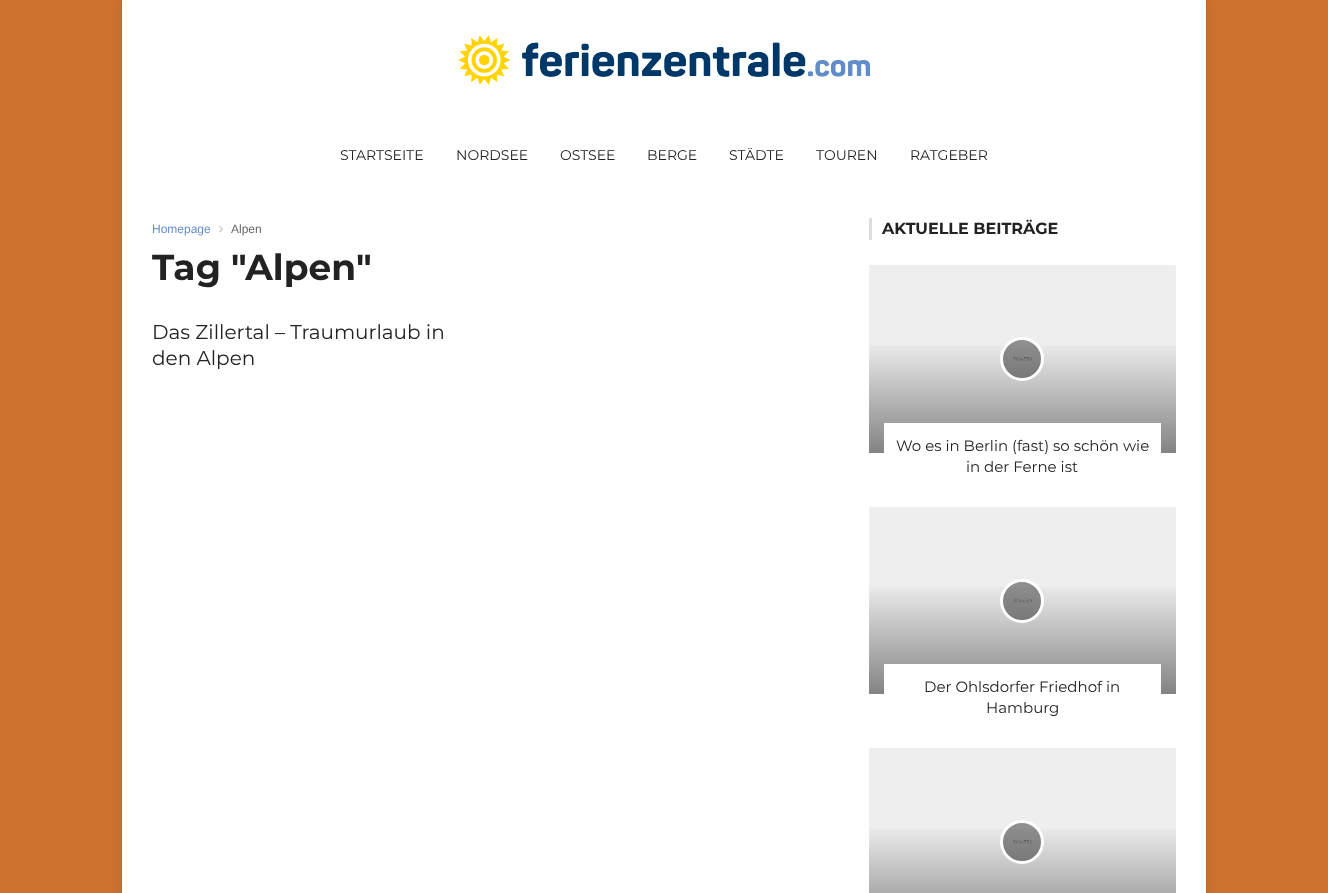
async function draw(canvas) {
  canvas.width = 1328;
  canvas.height = 893;
  const ctx = canvas.getContext('2d');
  ctx.miterLimit = 4;
  ctx.fontKerning = 'normal';
  function label(s, x, y, font, color) {
    ctx.font = font;
    ctx.fillStyle = color;
    ctx.fillText(s, x, y);
  }
  function rect(x, y, w, h, color) {
    ctx.fillStyle = color;
    ctx.fillRect(x, y, w, h);
  }
  async function image(src, x, y, w, h) {
    const img = new Image();
    img.src = src;
    await img.decode();
    ctx.drawImage(img, x, y, w, h);
  }
  let gradient;

  rect(0, 0, 1328, 893, '#cc722e');
  ctx.fillStyle = '#0000001a';
  ctx.filter = 'blur(5px)';
  ctx.beginPath();
  ctx.rect(122, 3, 1084, 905);
  ctx.fill();
  ctx.filter = 'none';
  rect(122, 0, 1084, 893, '#fff');
  await image('assets/img1.png', 458, 35, 412, 50);
  label('STARTSEITE', 340, 160, '14px Montserrat', '#222');
  label('NORDSEE', 456, 160, '14px Montserrat', '#222');
  label('OSTSEE', 560, 160, '14px Montserrat', '#222');
  label('BERGE', 647, 160, '14px Montserrat', '#222');
  label('STÄDTE', 729, 160, '14px Montserrat', '#222');
  label('TOUREN', 816, 160, '14px Montserrat', '#222');
  label('RATGEBER', 910, 160, '14px Montserrat', '#222');
  label('Homepage', 152, 233, '12px Liberation Sans', '#638dc9');
  await image('assets/img2.png', 219, 225, 4, 8);
  label('Alpen', 231, 233, '12px Liberation Sans', '#666');
  label('Tag "Alpen"', 152, 280, 'bold 36px Montserrat', '#222');
  label('Das Zillertal – Traumurlaub in', 152, 339, '20px Montserrat', '#222');
  label('den Alpen', 152, 365, '20px Montserrat', '#222');
  rect(869, 218, 3, 22, '#ddd');
  label('AKTUELLE BEITRÄGE', 882, 234, 'bold 16px Montserrat', '#222');
  await image('assets/img3.png', 869, 265, 307, 188);
  gradient = ctx.createLinearGradient(1023, 340, 1023, 453);
  gradient.addColorStop(0, '#00000000');
  gradient.addColorStop(1, '#00000073');
  ctx.fillStyle = gradient;
  ctx.fillRect(869, 345, 307, 108);
  ctx.fillStyle = '#00000066';
  ctx.beginPath();
  ctx.arc(1022, 359, 20.5, 0, 2 * Math.PI);
  ctx.fill();
  ctx.strokeStyle = '#fff';
  ctx.lineWidth = 3;
  ctx.stroke();
  rect(884, 423, 277, 30, '#fff');
  label('Wo es in Berlin (fast) so schön wie', 896, 451, '15px Montserrat', '#222');
  label('in der Ferne ist', 966, 472, '15px Montserrat', '#222');
  await image('assets/img4.png', 869, 507, 307, 187);
  gradient = ctx.createLinearGradient(1023, 582, 1023, 694);
  gradient.addColorStop(0, '#00000000');
  gradient.addColorStop(1, '#00000073');
  ctx.fillStyle = gradient;
  ctx.fillRect(869, 587, 307, 107);
  ctx.fillStyle = '#00000066';
  ctx.beginPath();
  ctx.arc(1022, 601, 20.5, 0, 2 * Math.PI);
  ctx.fill();
  ctx.stroke();
  rect(884, 664, 277, 30, '#fff');
  label('Der Ohlsdorfer Friedhof in', 924, 692, '15px Montserrat', '#222');
  label('Hamburg', 986, 713, '15px Montserrat', '#222');
  await image('assets/img5.png', 869, 748, 307, 145);
  gradient = ctx.createLinearGradient(1023, 824, 1023, 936);
  gradient.addColorStop(0, '#00000000');
  gradient.addColorStop(1, '#00000073');
  ctx.fillStyle = gradient;
  ctx.fillRect(869, 829, 307, 64);
  ctx.fillStyle = '#00000066';
  ctx.beginPath();
  ctx.arc(1022, 842, 20.5, 0, 2 * Math.PI);
  ctx.fill();
  ctx.stroke();
}

draw(document.querySelector('canvas'));
